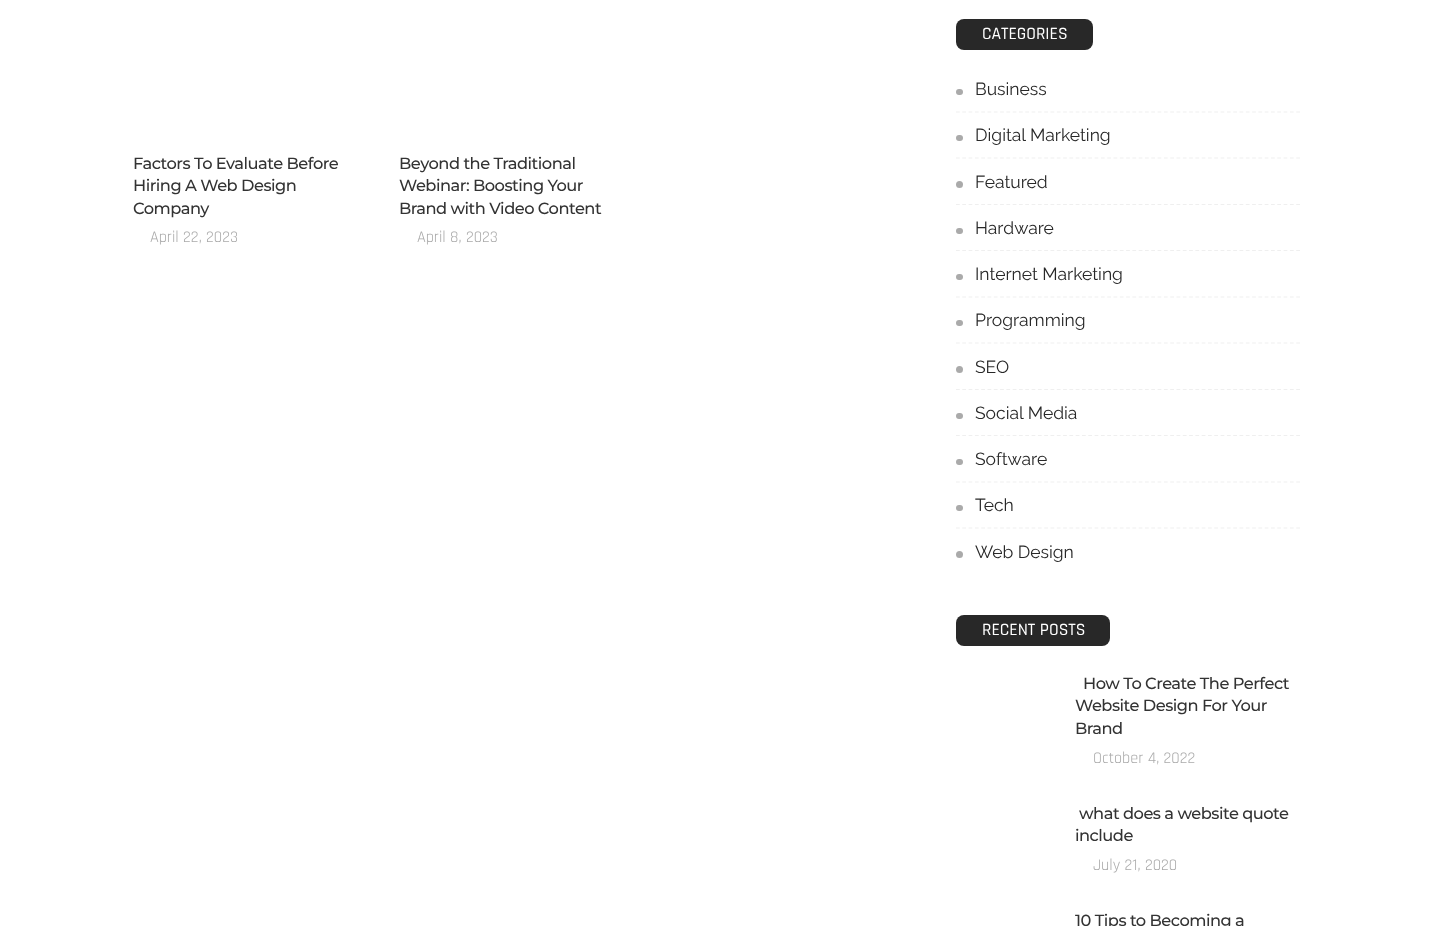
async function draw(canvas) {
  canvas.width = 1432;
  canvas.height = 926;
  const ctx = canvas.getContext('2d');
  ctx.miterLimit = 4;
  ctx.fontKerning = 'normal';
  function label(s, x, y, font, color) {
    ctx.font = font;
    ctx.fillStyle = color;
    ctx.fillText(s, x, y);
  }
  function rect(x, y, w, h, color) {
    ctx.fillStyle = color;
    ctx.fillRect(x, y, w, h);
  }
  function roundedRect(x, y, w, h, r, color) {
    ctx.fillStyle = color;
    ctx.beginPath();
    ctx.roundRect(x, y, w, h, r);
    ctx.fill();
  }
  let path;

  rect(0, 0, 1432, 926, '#fff');
  ctx.letterSpacing = '-0.5px';
  label('Factors To Evaluate Before', 133, 169, '500 16.25px Montserrat', '#333');
  label('Hiring A Web Design', 133, 191, '500 16.25px Montserrat', '#333');
  label('Company', 133, 214, '500 16.25px Montserrat', '#333');
  ctx.letterSpacing = '0px';
  label('April 22, 2023', 150, 242, '16.25px Rajdhani', '#aaa');
  ctx.letterSpacing = '-0.5px';
  label('Beyond the Traditional', 399, 169, '500 16.25px Montserrat', '#333');
  label('Webinar: Boosting Your', 399, 191, '500 16.25px Montserrat', '#333');
  label('Brand with Video Content', 399, 214, '500 16.25px Montserrat', '#333');
  ctx.letterSpacing = '0px';
  label('April 8, 2023', 417, 242, '16.25px Rajdhani', '#aaa');
  roundedRect(956, 19, 137, 31, 8, '#282828');
  label('CATEGORIES', 982, 39, '500 17.5px Rajdhani', '#fff');
  path = new Path2D('M956 112H1300');
  ctx.strokeStyle = '#efefef';
  ctx.lineWidth = 1.2;
  ctx.setLineDash([3.75, 2.55]);
  ctx.stroke(path);
  roundedRect(956, 89, 7, 6, 3, '#aaa');
  label('Business', 975, 95, '17.5px Raleway', '#282828');
  path = new Path2D('M956 158H1300');
  ctx.stroke(path);
  roundedRect(956, 135, 7, 6, 3, '#aaa');
  label('Digital Marketing', 975, 141, '17.5px Raleway', '#282828');
  path = new Path2D('M956 204.5H1300');
  ctx.stroke(path);
  ctx.fillStyle = '#aaa';
  ctx.beginPath();
  ctx.arc(959.5, 184.5, 3.5, 0, 2 * Math.PI);
  ctx.fill();
  label('Featured', 975, 188, '17.5px Raleway', '#282828');
  path = new Path2D('M956 250.5H1300');
  ctx.stroke(path);
  roundedRect(956, 228, 7, 6, 3, '#aaa');
  label('Hardware', 975, 234, '17.5px Raleway', '#282828');
  path = new Path2D('M956 297H1300');
  ctx.stroke(path);
  roundedRect(956, 274, 7, 6, 3, '#aaa');
  label('Internet Marketing', 975, 280, '17.5px Raleway', '#282828');
  path = new Path2D('M956 343H1300');
  ctx.stroke(path);
  roundedRect(956, 320, 7, 6, 3, '#aaa');
  label('Programming', 975, 326, '17.5px Raleway', '#282828');
  path = new Path2D('M956 389.5H1300');
  ctx.stroke(path);
  ctx.fillStyle = '#aaa';
  ctx.beginPath();
  ctx.arc(959.5, 369.5, 3.5, 0, 2 * Math.PI);
  ctx.fill();
  label('SEO', 975, 373, '17.5px Raleway', '#282828');
  path = new Path2D('M956 435.5H1300');
  ctx.stroke(path);
  roundedRect(956, 413, 7, 6, 3, '#aaa');
  label('Social Media', 975, 419, '17.5px Raleway', '#282828');
  path = new Path2D('M956 482H1300');
  ctx.stroke(path);
  roundedRect(956, 459, 7, 6, 3, '#aaa');
  label('Software', 975, 465, '17.5px Raleway', '#282828');
  path = new Path2D('M956 528H1300');
  ctx.stroke(path);
  roundedRect(956, 505, 7, 6, 3, '#aaa');
  label('Tech', 975, 511, '17.5px Raleway', '#282828');
  ctx.fillStyle = '#aaa';
  ctx.beginPath();
  ctx.arc(959.5, 554.5, 3.5, 0, 2 * Math.PI);
  ctx.fill();
  label('Web Design', 975, 558, '17.5px Raleway', '#282828');
  roundedRect(956, 615, 154, 31, 8, '#282828');
  label('RECENT POSTS', 982, 635, '500 17.5px Rajdhani', '#fff');
  ctx.letterSpacing = '-0.5px';
  label('How To Create The Perfect', 1083, 689, '500 16.25px Montserrat', '#333');
  label('Website Design For Your', 1075, 711, '500 16.25px Montserrat', '#333');
  label('Brand', 1075, 734, '500 16.25px Montserrat', '#333');
  ctx.letterSpacing = '0px';
  label('October 4, 2022', 1093, 763, '16.25px Rajdhani', '#aaa');
  ctx.letterSpacing = '-0.5px';
  label('what does a website quote', 1079, 819, '500 16.25px Montserrat', '#333');
  label('include', 1075, 841, '500 16.25px Montserrat', '#333');
  ctx.letterSpacing = '0px';
  label('July 21, 2020', 1093, 870, '16.25px Rajdhani', '#aaa');
  ctx.letterSpacing = '-0.5px';
  label('10 Tips to Becoming a', 1075, 926, '500 16.25px Montserrat', '#333');
}

draw(document.querySelector('canvas'));
